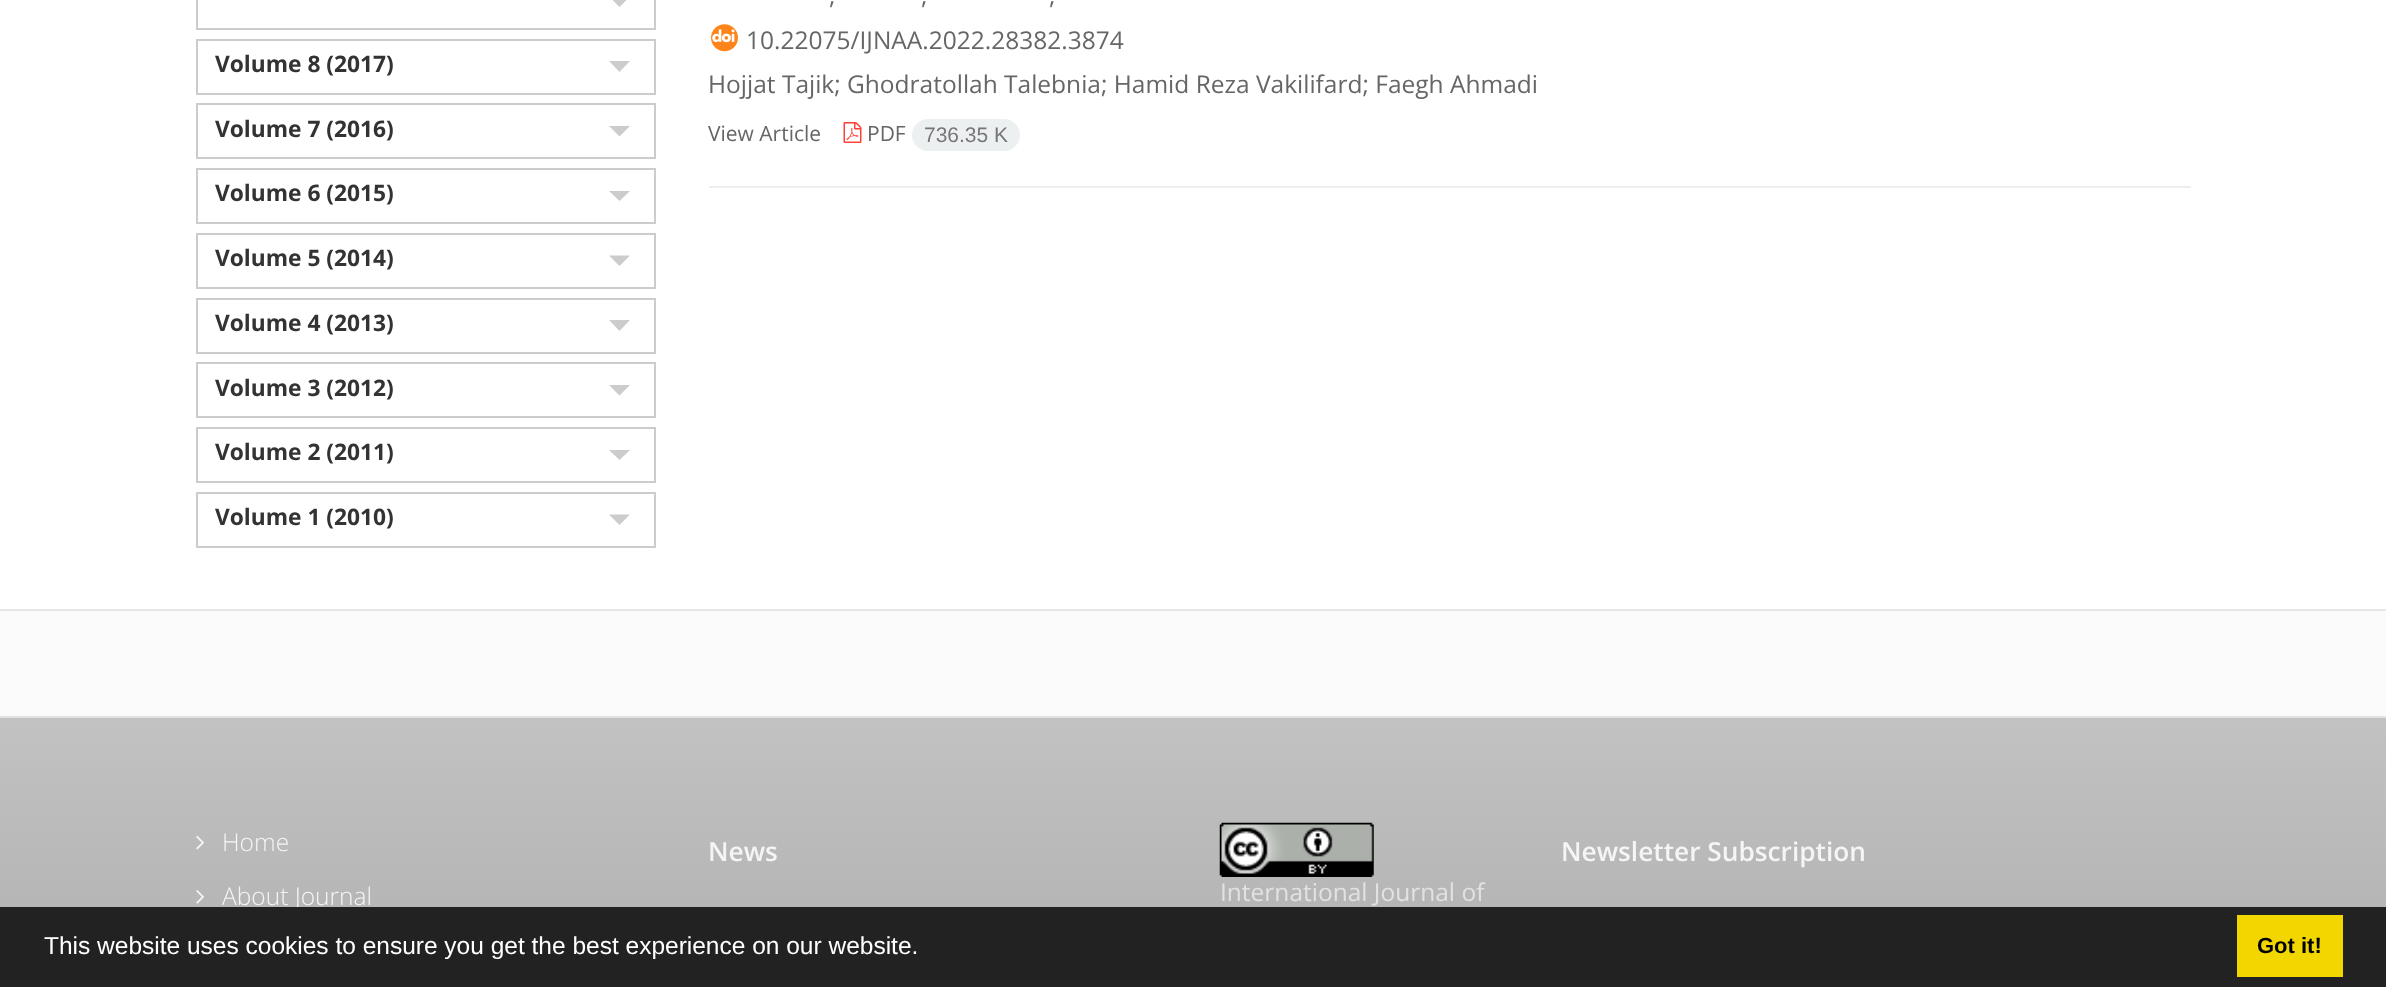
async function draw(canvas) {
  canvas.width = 2386;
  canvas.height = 987;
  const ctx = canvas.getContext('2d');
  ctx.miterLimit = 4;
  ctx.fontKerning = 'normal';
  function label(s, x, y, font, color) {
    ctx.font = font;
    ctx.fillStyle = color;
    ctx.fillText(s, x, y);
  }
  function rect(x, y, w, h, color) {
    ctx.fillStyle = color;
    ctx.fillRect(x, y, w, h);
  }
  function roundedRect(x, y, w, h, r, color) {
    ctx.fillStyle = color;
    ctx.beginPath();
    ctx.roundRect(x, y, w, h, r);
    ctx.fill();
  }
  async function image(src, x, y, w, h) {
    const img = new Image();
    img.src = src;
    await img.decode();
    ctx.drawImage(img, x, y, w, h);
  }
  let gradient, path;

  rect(0, 0, 2386, 987, '#fff');
  rect(0, 609, 2386, 2, '#e6e6e6');
  ctx.strokeStyle = '#ccc';
  ctx.lineWidth = 2;
  ctx.strokeRect(197, -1, 458, 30);
  ctx.fillStyle = '#ccc';
  path = new Path2D('M609-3.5H630L619.5 7Z');
  ctx.fill(path);
  ctx.strokeRect(197, 40, 458, 54);
  label('Volume 8 (2017)', 215, 72, 'bold 22.75px Open Sans', '#333');
  ctx.fillStyle = '#ccc';
  path = new Path2D('M609 61H630L619.5 72Z');
  ctx.fill(path);
  ctx.strokeRect(197, 104, 458, 54);
  label('Volume 7 (2016)', 215, 137, 'bold 22.75px Open Sans', '#333');
  ctx.fillStyle = '#ccc';
  path = new Path2D('M609 126H630L619.5 136.5Z');
  ctx.fill(path);
  ctx.strokeRect(197, 169, 458, 54);
  label('Volume 6 (2015)', 215, 201, 'bold 22.75px Open Sans', '#333');
  ctx.fillStyle = '#ccc';
  path = new Path2D('M609 191H630L619.5 201Z');
  ctx.fill(path);
  ctx.strokeRect(197, 234, 458, 54);
  label('Volume 5 (2014)', 215, 266, 'bold 22.75px Open Sans', '#333');
  ctx.fillStyle = '#ccc';
  path = new Path2D('M609 255.5H630L619.5 266Z');
  ctx.fill(path);
  ctx.strokeRect(197, 299, 458, 54);
  label('Volume 4 (2013)', 215, 331, 'bold 22.75px Open Sans', '#333');
  ctx.fillStyle = '#ccc';
  path = new Path2D('M609 320H630L619.5 331Z');
  ctx.fill(path);
  ctx.strokeRect(197, 363, 458, 54);
  label('Volume 3 (2012)', 215, 396, 'bold 22.75px Open Sans', '#333');
  ctx.fillStyle = '#ccc';
  path = new Path2D('M609 385H630L619.5 395.5Z');
  ctx.fill(path);
  ctx.strokeRect(197, 428, 458, 54);
  label('Volume 2 (2011)', 215, 460, 'bold 22.75px Open Sans', '#333');
  ctx.fillStyle = '#ccc';
  path = new Path2D('M609 450H630L619.5 460Z');
  ctx.fill(path);
  ctx.strokeRect(197, 493, 458, 54);
  label('Volume 1 (2010)', 215, 525, 'bold 22.75px Open Sans', '#333');
  ctx.fillStyle = '#ccc';
  path = new Path2D('M609 514.5H630L619.5 525Z');
  ctx.fill(path);
  label(',', 829, 4, '24.5px Open Sans', '#666');
  label(',', 921, 4, '24.5px Open Sans', '#666');
  label(',', 1049, 4, '24.5px Open Sans', '#666');
  await image('assets/img1.png', 711, 24, 27, 28);
  label('10.22075/IJNAA.2022.28382.3874', 746, 49, '24.5px Open Sans', '#666');
  label('Hojjat Tajik; Ghodratollah Talebnia; Hamid Reza Vakilifard; Faegh Ahmadi', 708, 93, '24.5px Open Sans', '#666');
  label('View Article', 708, 141, '21px Open Sans', '#666');
  await image('assets/img2.png', 843, 122, 19, 21);
  label('PDF', 867, 141, '21px Open Sans', '#666');
  roundedRect(912, 119, 108, 32, 16, '#ecf0f1');
  label('736.35 K', 924, 142, '21px Liberation Sans', '#777');
  rect(709, 186, 1482, 2, '#eee');
  rect(0, 611, 2386, 105, '#fbfbfb');
  rect(0, 716, 2386, 2, '#e2e2e2');
  gradient = ctx.createLinearGradient(1194, 717, 1194, 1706);
  gradient.addColorStop(0, '#c2c2c2');
  gradient.addColorStop(1, '#848484');
  ctx.fillStyle = gradient;
  ctx.fillRect(0, 718, 2386, 189);
  await image('assets/img3.png', 196, 835, 8, 15);
  label('Home', 222, 851, '300 24.5px Open Sans', '#f5f5f5');
  await image('assets/img4.png', 196, 890, 8, 14);
  label('About Journal', 222, 905, '300 24.5px Open Sans', '#f5f5f5');
  label('News', 708, 861, '600 26.25px Open Sans', '#f5f5f5');
  label('Newsletter Subscription', 1561, 861, '600 26.25px Open Sans', '#f5f5f5');
  await image('assets/img5.png', 1219, 822, 155, 55);
  label('International Journal of', 1220, 901, '24.5px Open Sans', '#e2e2e2');
  rect(0, 907, 2386, 80, '#222');
  label('This website uses cookies to ensure you get the best experience on our website.', 44, 954, '24.5px Liberation Sans', '#fff');
  rect(2237, 915, 106, 62, '#f1d600');
  label('Got it!', 2257, 953, 'bold 22px Liberation Sans', '#000');
}

draw(document.querySelector('canvas'));
